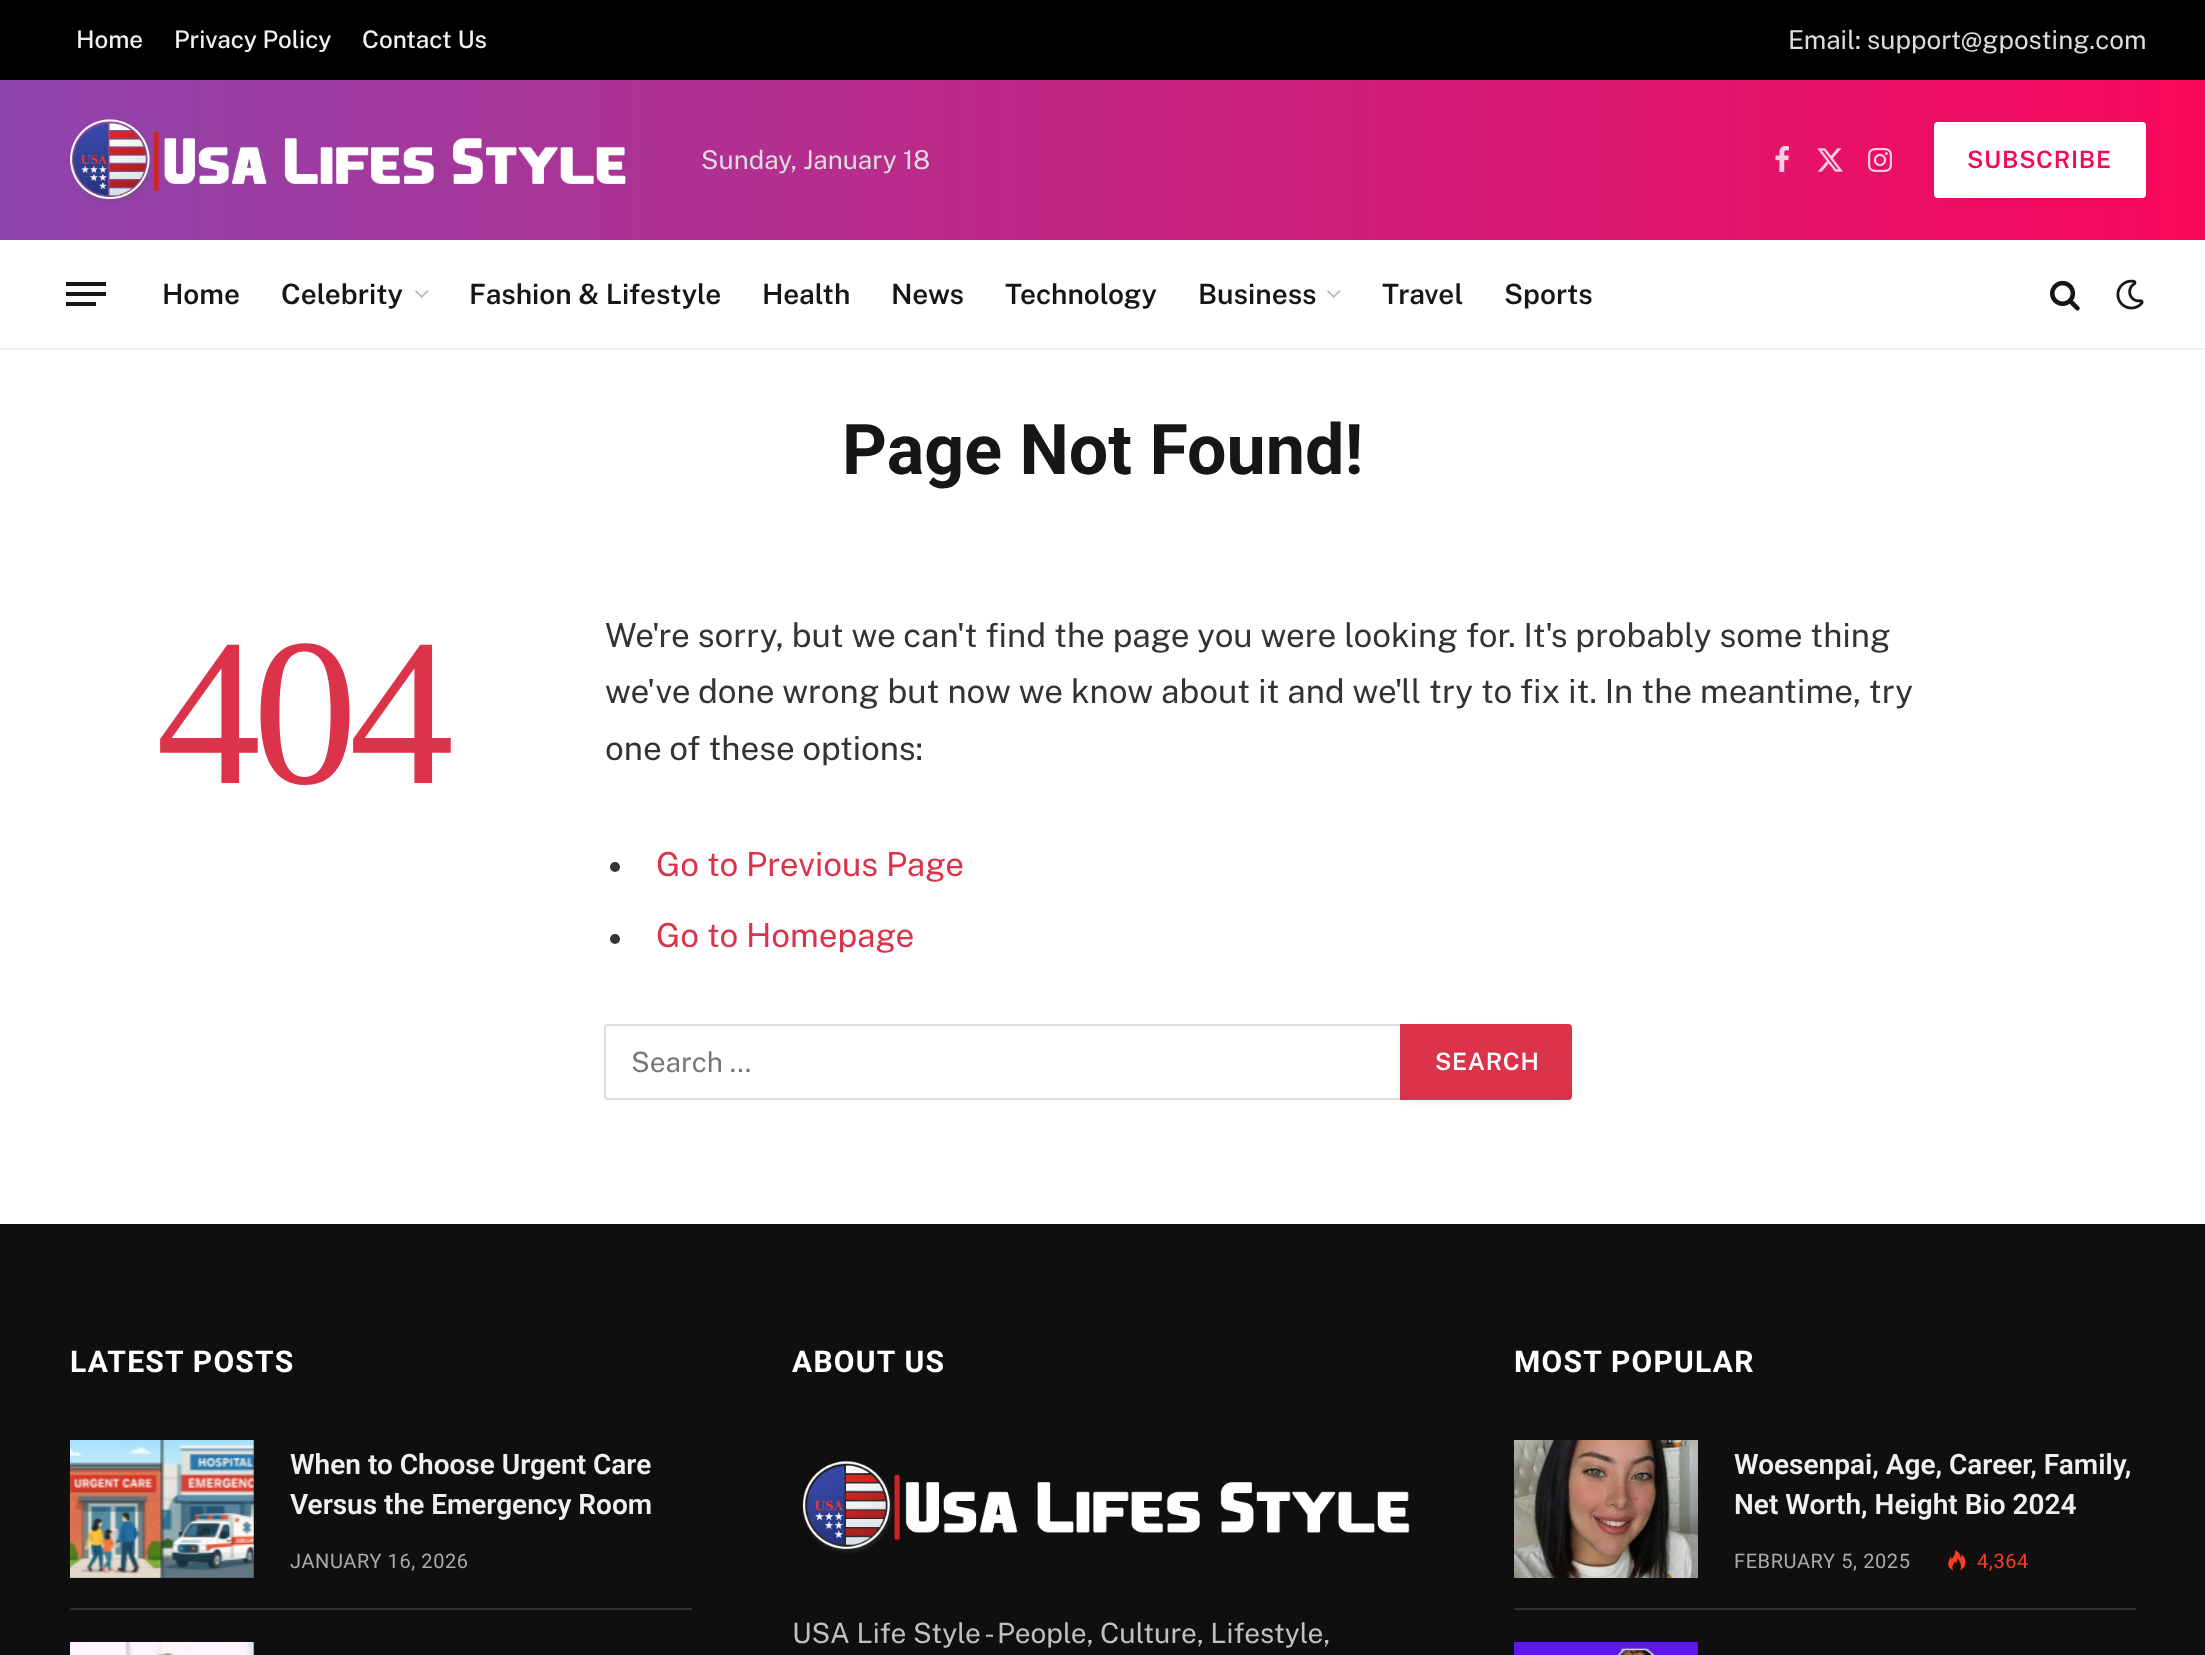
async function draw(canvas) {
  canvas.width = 2205;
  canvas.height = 1655;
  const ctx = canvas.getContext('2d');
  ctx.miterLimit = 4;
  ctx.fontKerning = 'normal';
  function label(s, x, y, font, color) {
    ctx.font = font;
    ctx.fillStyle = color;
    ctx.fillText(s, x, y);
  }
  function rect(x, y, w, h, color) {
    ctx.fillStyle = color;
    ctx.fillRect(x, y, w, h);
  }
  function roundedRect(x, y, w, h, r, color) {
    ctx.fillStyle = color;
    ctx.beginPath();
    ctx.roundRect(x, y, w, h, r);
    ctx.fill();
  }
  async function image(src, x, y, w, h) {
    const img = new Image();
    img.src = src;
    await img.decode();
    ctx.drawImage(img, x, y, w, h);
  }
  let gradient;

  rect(0, 0, 2205, 1655, '#fff');
  rect(0, 0, 2205, 80, '#000');
  label('Home', 76, 48, '500 24.25px Public Sans', '#f0f0f0');
  label('Privacy Policy', 174, 48, '500 24.25px Public Sans', '#f0f0f0');
  label('Contact Us', 362, 48, '500 24.25px Public Sans', '#f0f0f0');
  label('Email: support@gposting.com', 1788, 49, '26px Public Sans', '#ddd');
  gradient = ctx.createLinearGradient(0, 160, 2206, 160);
  gradient.addColorStop(0, '#8e44ad');
  gradient.addColorStop(1, '#f80759');
  ctx.fillStyle = gradient;
  ctx.fillRect(0, 80, 2205, 160);
  await image('assets/img1.png', 69, 119, 557, 84);
  label('Sunday, January 18', 701, 169, '26px Public Sans', '#ddd');
  await image('assets/img2.png', 1775, 146, 14, 26);
  await image('assets/img3.png', 1817, 148, 26, 24);
  await image('assets/img4.png', 1868, 148, 24, 24);
  ctx.fillStyle = '#00000029';
  ctx.filter = 'blur(7px)';
  ctx.beginPath();
  ctx.rect(1942, 134, 196, 60);
  ctx.fill();
  ctx.filter = 'none';
  roundedRect(1934, 122, 212, 76, 4, '#fff');
  ctx.letterSpacing = '0.75px';
  label('SUBSCRIBE', 1967, 168, '600 24px Public Sans', '#f80759');
  rect(0, 348, 2205, 2, '#efefef');
  rect(66, 302, 30, 4, '#161616');
  rect(66, 282, 40, 4, '#161616');
  rect(66, 292, 40, 4, '#161616');
  ctx.letterSpacing = '0px';
  label('Home', 162, 304, '600 28px Public Sans', '#161616');
  label('Celebrity', 281, 304, '600 28px Public Sans', '#161616');
  await image('assets/img5.png', 415, 290, 14, 8);
  label('Fashion & Lifestyle', 469, 304, '600 28px Public Sans', '#161616');
  label('Health', 762, 304, '600 28px Public Sans', '#161616');
  label('News', 891, 304, '600 28px Public Sans', '#161616');
  label('Technology', 1005, 304, '600 28px Public Sans', '#161616');
  label('Business', 1198, 304, '600 28px Public Sans', '#161616');
  await image('assets/img5.png', 1327, 290, 14, 8);
  label('Travel', 1382, 304, '600 28px Public Sans', '#161616');
  label('Sports', 1504, 304, '600 28px Public Sans', '#161616');
  await image('assets/img6.png', 2050, 280, 30, 31);
  await image('assets/img7.png', 2116, 279, 28, 31);
  label('Page Not Found!', 842, 474, 'bold 70px Roboto', '#161616');
  ctx.letterSpacing = '-8.5px';
  label('404', 156, 783, '210px Liberation Serif', '#da334a');
  ctx.letterSpacing = '0px';
  label('We\'re sorry, but we can\'t find the page you were looking for. It\'s probably some thing', 605, 647, '33.2px Public Sans', '#333');
  label('we\'ve done wrong but now we know about it and we\'ll try to fix it. In the meantime, try', 605, 703, '33.2px Public Sans', '#333');
  label('one of these options:', 605, 760, '33.2px Public Sans', '#333');
  ctx.beginPath();
  ctx.arc(615, 867, 5, 0, 2 * Math.PI);
  ctx.fill();
  label('Go to Previous Page', 656, 876, '33.2px Public Sans', '#da334a');
  ctx.fillStyle = '#333';
  ctx.beginPath();
  ctx.arc(615, 939, 5, 0, 2 * Math.PI);
  ctx.fill();
  label('Go to Homepage', 656, 947, '33.2px Public Sans', '#da334a');
  ctx.beginPath();
  ctx.roundRect(605, 1025, 798, 74, 3);
  ctx.strokeStyle = '#ddd';
  ctx.lineWidth = 2;
  ctx.stroke();
  label('Search …', 631, 1072, '28px Public Sans', '#777');
  ctx.fillStyle = '#00000029';
  ctx.filter = 'blur(7px)';
  ctx.beginPath();
  ctx.rect(1408, 1036, 156, 60);
  ctx.fill();
  ctx.filter = 'none';
  ctx.fillStyle = '#da334a';
  ctx.beginPath();
  ctx.roundRect(1400, 1024, 172, 76, [0, 4, 4, 0]);
  ctx.fill();
  ctx.letterSpacing = '0.75px';
  label('SEARCH', 1435, 1070, '600 24px Public Sans', '#fff');
  rect(0, 1224, 2205, 431, '#0f0f0f');
  ctx.letterSpacing = '1.25px';
  label('LATEST POSTS', 70, 1372, 'bold 30px Roboto', '#fff');
  await image('assets/img8.png', 70, 1440, 184, 138);
  ctx.letterSpacing = '0px';
  label('When to Choose Urgent Care', 290, 1474, '600 28px Roboto', '#f0f0f0');
  label('Versus the Emergency Room', 290, 1514, '600 28px Roboto', '#f0f0f0');
  ctx.letterSpacing = '0.6px';
  label('JANUARY 16, 2026', 290, 1568, '20px Roboto', '#ababab');
  rect(70, 1608, 622, 2, '#2e2e2e');
  await image('assets/img9.png', 70, 1642, 184, 13);
  ctx.letterSpacing = '1.25px';
  label('ABOUT US', 792, 1372, 'bold 30px Roboto', '#fff');
  await image('assets/img10.png', 802, 1461, 608, 93);
  ctx.letterSpacing = '0px';
  label('USA Life Style - People, Culture, Lifestyle,', 792, 1643, '28px Public Sans', '#c0c0c0');
  ctx.letterSpacing = '1.25px';
  label('MOST POPULAR', 1514, 1372, 'bold 30px Roboto', '#fff');
  await image('assets/img11.png', 1514, 1440, 184, 138);
  ctx.letterSpacing = '0px';
  label('Woesenpai, Age, Career, Family,', 1734, 1474, '600 28px Roboto', '#f0f0f0');
  label('Net Worth, Height Bio 2024', 1734, 1514, '600 28px Roboto', '#f0f0f0');
  ctx.letterSpacing = '0.6px';
  label('FEBRUARY 5, 2025', 1734, 1568, '20px Roboto', '#ababab');
  await image('assets/img12.png', 1948, 1550, 18, 21);
  label('4,364', 1977, 1568, '20px Roboto', '#f73f20');
  rect(1514, 1608, 622, 2, '#2e2e2e');
  await image('assets/img13.png', 1514, 1642, 184, 13);
}

draw(document.querySelector('canvas'));
